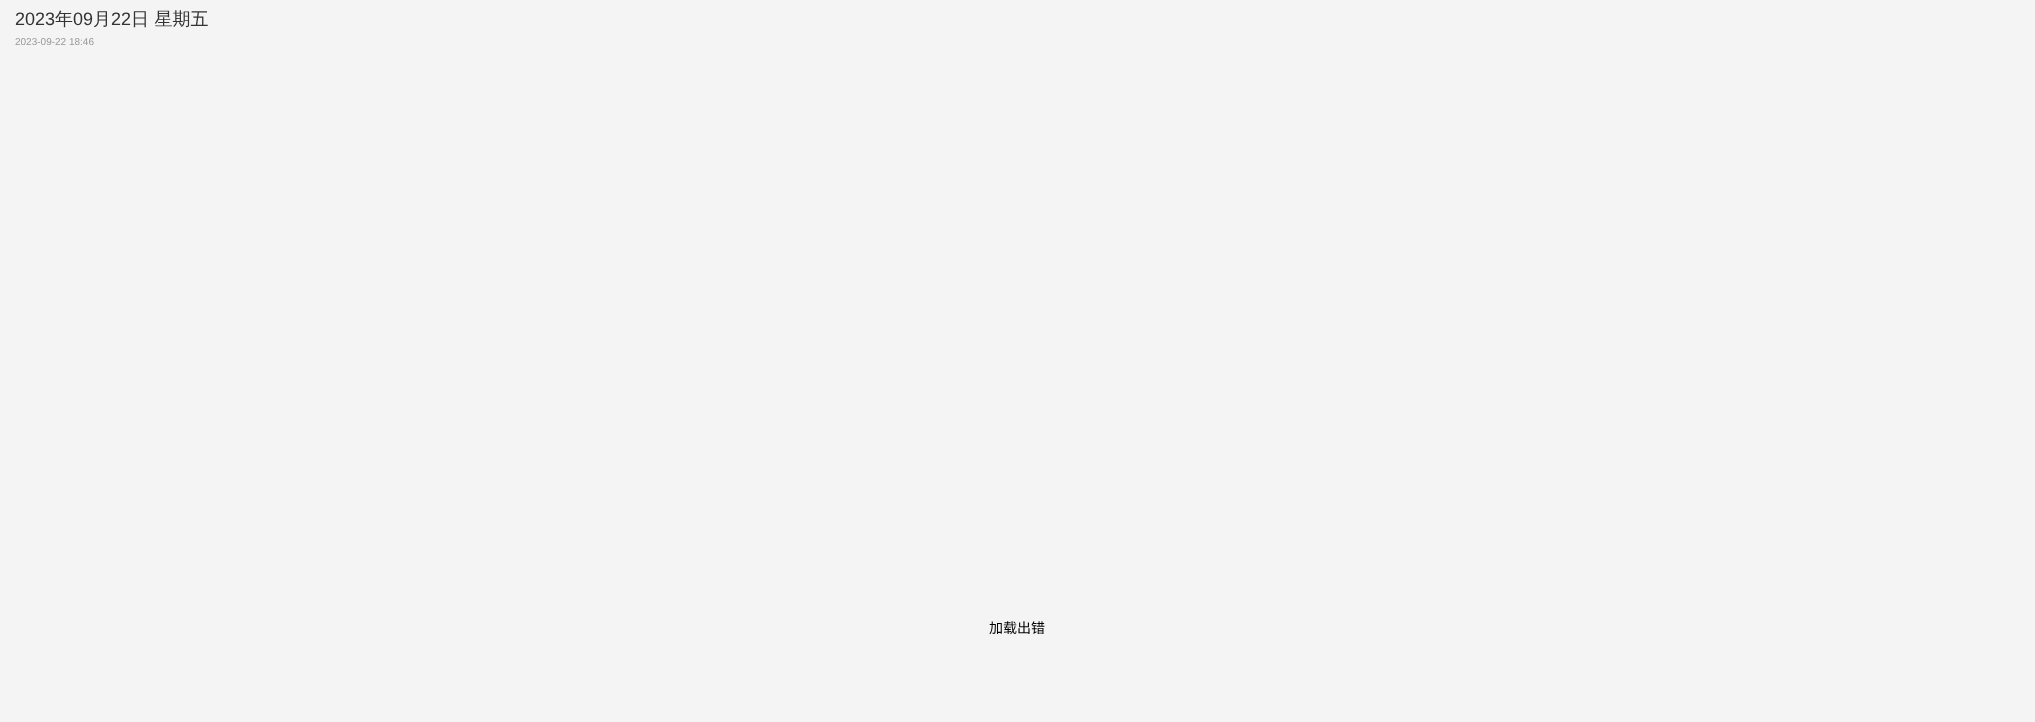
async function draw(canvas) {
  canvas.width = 2035;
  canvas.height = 722;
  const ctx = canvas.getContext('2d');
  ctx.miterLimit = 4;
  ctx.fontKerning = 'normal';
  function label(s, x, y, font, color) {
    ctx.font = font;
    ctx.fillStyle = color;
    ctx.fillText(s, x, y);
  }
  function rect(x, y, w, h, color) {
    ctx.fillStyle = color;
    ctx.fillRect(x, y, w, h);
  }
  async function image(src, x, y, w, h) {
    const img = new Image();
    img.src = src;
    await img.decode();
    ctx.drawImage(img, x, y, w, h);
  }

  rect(0, 0, 2035, 722, '#f4f4f4');
  label('2023', 15, 25, '18px Liberation Sans', '#333');
  label('年', 55, 25, '500 18px WenQuanYi Zen Hei', '#333');
  label('09', 73, 25, '18px Liberation Sans', '#333');
  label('月', 93, 25, '500 18px WenQuanYi Zen Hei', '#333');
  label('22', 111, 25, '18px Liberation Sans', '#333');
  label('日 星期五', 131, 25, '500 18px WenQuanYi Zen Hei', '#333');
  label('2023-09-22 18:46', 15, 45, '10px Liberation Sans', '#999');
  await image('assets/img1.png', 989, 621, 56, 14);
}

draw(document.querySelector('canvas'));
